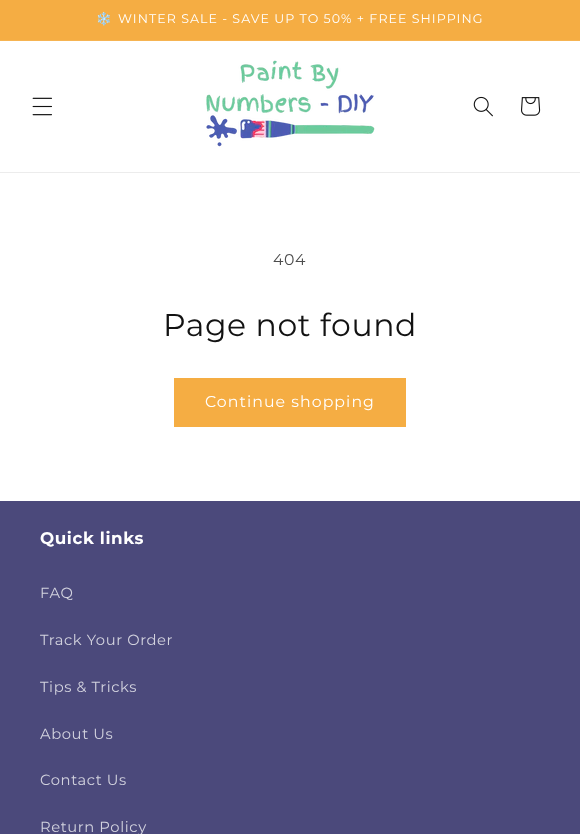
async function draw(canvas) {
  canvas.width = 580;
  canvas.height = 834;
  const ctx = canvas.getContext('2d');
  ctx.miterLimit = 4;
  ctx.fontKerning = 'normal';
  function label(s, x, y, font, color) {
    ctx.font = font;
    ctx.fillStyle = color;
    ctx.fillText(s, x, y);
  }
  function rect(x, y, w, h, color) {
    ctx.fillStyle = color;
    ctx.fillRect(x, y, w, h);
  }
  async function image(src, x, y, w, h) {
    const img = new Image();
    img.src = src;
    await img.decode();
    ctx.drawImage(img, x, y, w, h);
  }

  rect(0, 0, 580, 834, '#fff');
  rect(0, 0, 580, 40, '#f5ad43');
  rect(0, 40, 580, 1, '#f6b452');
  ctx.letterSpacing = '1.05px';
  label('❄️', 96, 23, '12.6px Noto Color Emoji', '#fff');
  ctx.wordSpacing = '-0.1px';
  label('WINTER SALE - SAVE UP TO 50% + FREE SHIPPING', 118, 23, '12.6px Montserrat', '#fff');
  rect(0, 172, 580, 1, '#ececec');
  await image('assets/img1.png', 32, 97, 20, 19);
  await image('assets/img2.png', 206, 60, 169, 87);
  await image('assets/img3.png', 473, 96, 20, 21);
  await image('assets/img4.png', 521, 97, 20, 19);
  ctx.letterSpacing = '0.6px';
  ctx.wordSpacing = '0px';
  label('404', 273, 265, '15.75px Montserrat', '#4d4d4d');
  label('Page not found', 163, 336, '31.5px Montserrat', '#121212');
  rect(174, 378, 232, 49, '#f5ad43');
  ctx.letterSpacing = '1.05px';
  label('Continue shopping', 205, 407, '15.75px Montserrat', '#fff');
  rect(0, 501, 580, 333, '#4b497b');
  ctx.letterSpacing = '0.6px';
  label('Quick links', 40, 544, 'bold 16.75px Montserrat', '#fff');
  label('FAQ', 40, 598, '14.75px Montserrat', '#d2d2de');
  label('Track Your Order', 40, 645, '14.75px Montserrat', '#d2d2de');
  label('Tips & Tricks', 40, 692, '14.75px Montserrat', '#d2d2de');
  label('About Us', 40, 739, '14.75px Montserrat', '#d2d2de');
  label('Contact Us', 40, 785, '14.75px Montserrat', '#d2d2de');
  label('Return Policy', 40, 832, '14.75px Montserrat', '#d2d2de');
}

draw(document.querySelector('canvas'));
